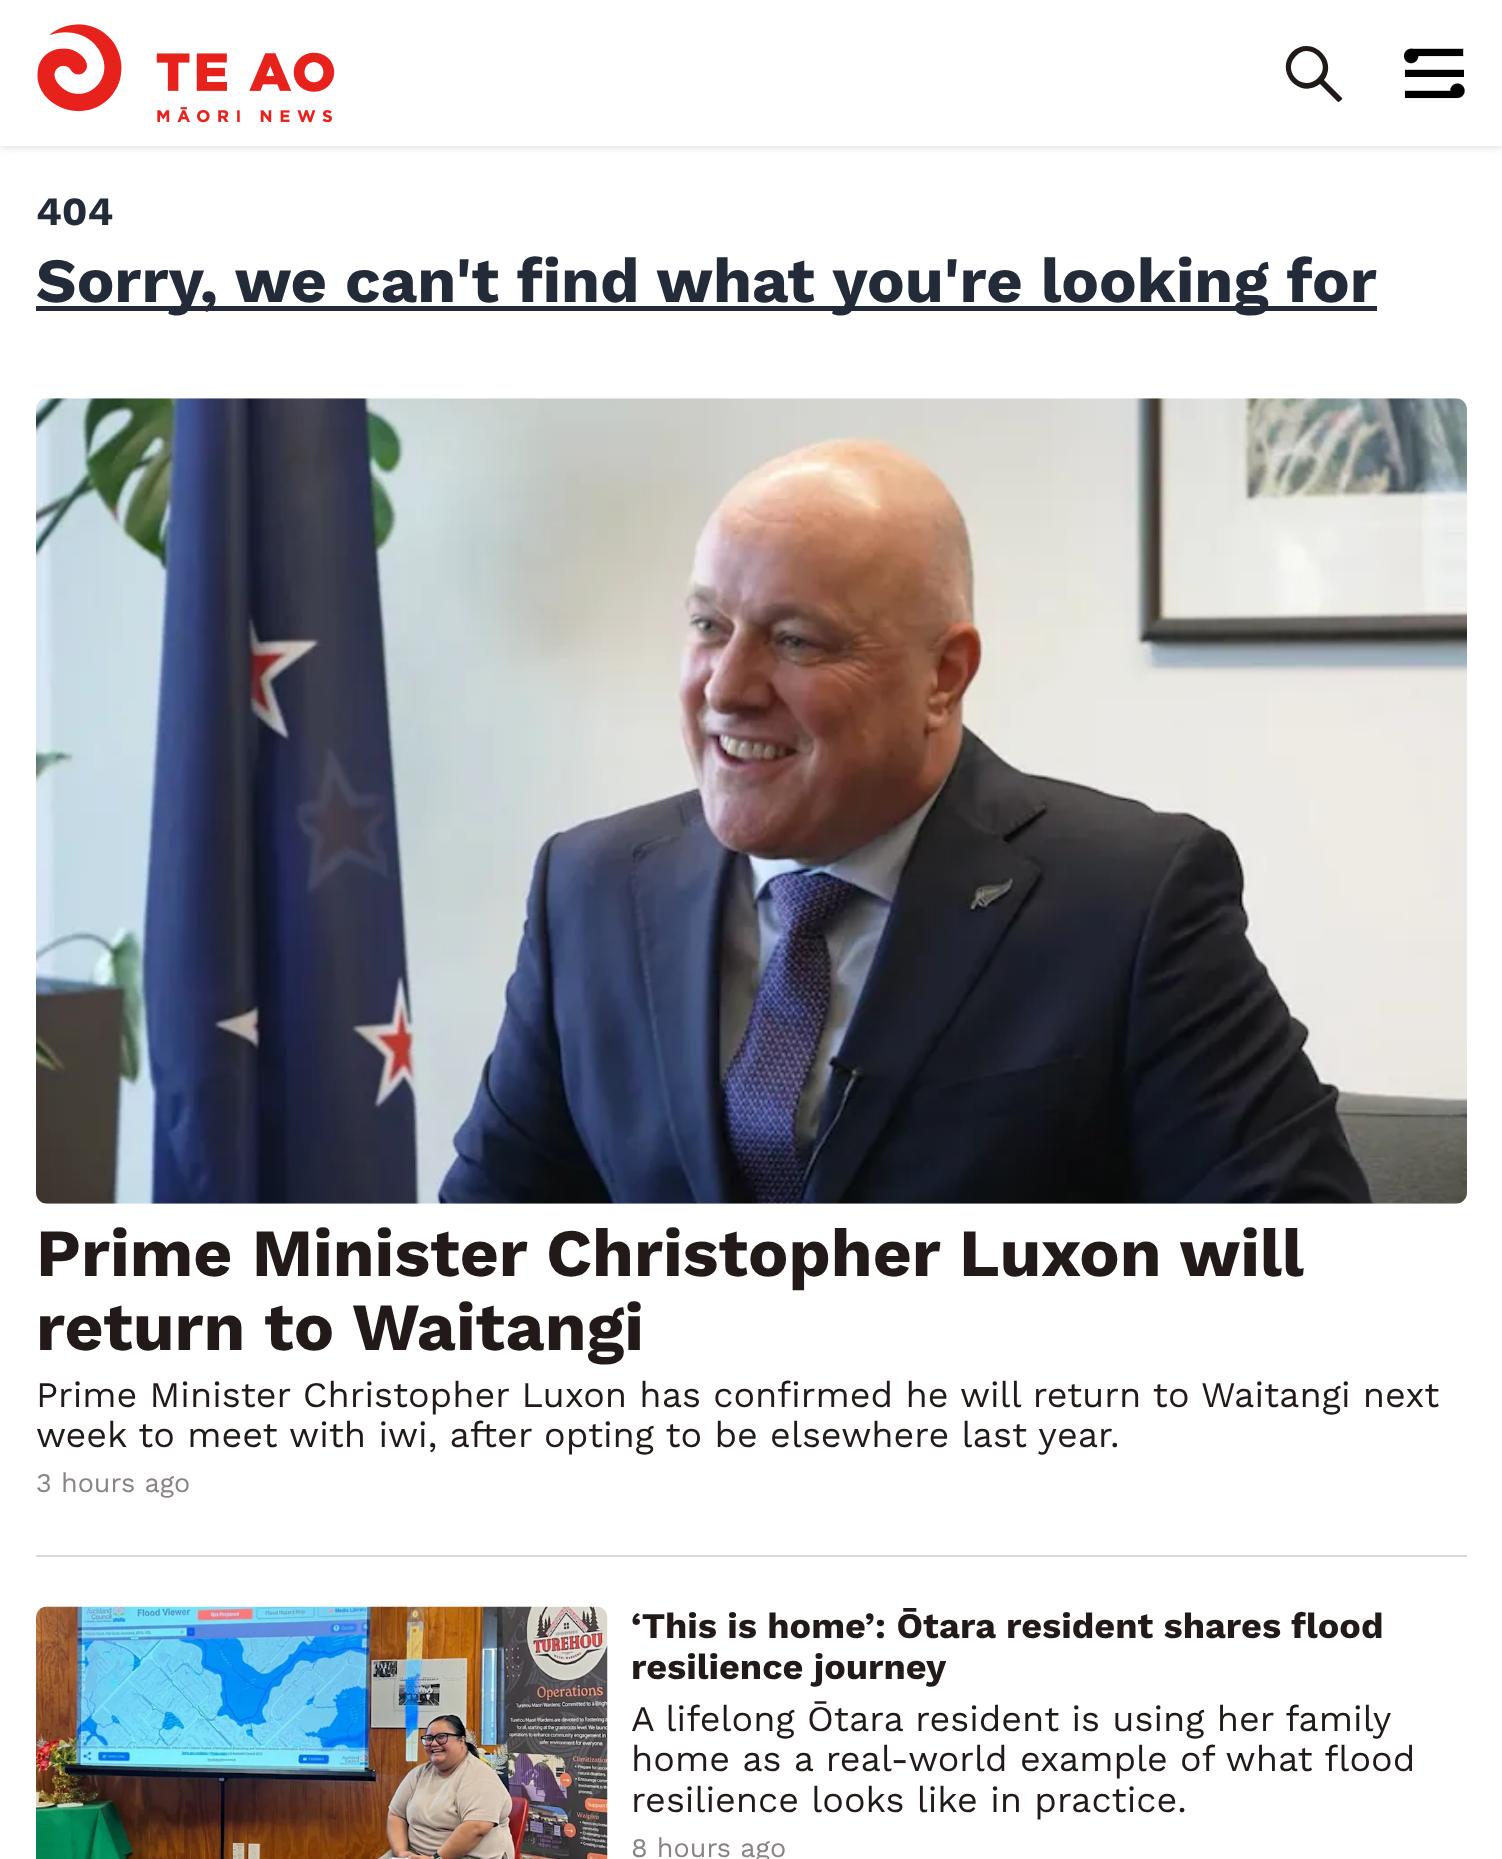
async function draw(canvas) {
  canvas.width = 1502;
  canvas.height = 1859;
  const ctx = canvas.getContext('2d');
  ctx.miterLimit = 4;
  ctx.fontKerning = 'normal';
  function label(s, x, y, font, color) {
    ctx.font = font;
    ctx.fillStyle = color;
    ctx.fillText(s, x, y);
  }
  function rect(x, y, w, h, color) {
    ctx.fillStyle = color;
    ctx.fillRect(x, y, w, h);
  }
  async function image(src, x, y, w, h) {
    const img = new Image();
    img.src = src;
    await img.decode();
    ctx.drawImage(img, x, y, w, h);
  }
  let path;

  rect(0, 0, 1502, 1859, '#fff');
  ctx.save();
  ctx.beginPath();
  ctx.rect(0, 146, 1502, 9);
  ctx.clip();
  ctx.fillStyle = '#d9d1ce';
  ctx.filter = 'blur(4.5px)';
  ctx.beginPath();
  ctx.rect(0, 0, 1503, 146);
  ctx.fill();
  ctx.filter = 'none';
  ctx.restore();
  await image('assets/img1.png', 37, 24, 298, 99);
  ctx.fillStyle = '#221a19';
  path = new Path2D('M1342 98L1324 80C1339 60 1311 34 1292 52C1274 71 1299 100 1320 84L1335 99C1338 102 1338 103 1340 101C1340 101 1343 99 1342 98ZM1318 78C1303 93 1281 71 1296 56C1310 41 1333 64 1318 78Z');
  ctx.fill(path);
  await image('assets/img2.png', 1404, 48, 61, 51);
  label('404', 36, 225, 'bold 40px Work Sans', '#232b39');
  rect(36, 306, 1341, 5, '#232b39');
  label('Sorry, we can\'t find what you\'re looking for', 36, 302, 'bold 63px Work Sans', '#232b39');
  await image('assets/img3.png', 36, 398, 1431, 806);
  label('Prime Minister Christopher Luxon will', 36, 1276, 'bold 67.5px Work Sans', '#221a19');
  label('return to Waitangi', 36, 1350, 'bold 67.5px Work Sans', '#221a19');
  label('Prime Minister Christopher Luxon has confirmed he will return to Waitangi next', 36, 1407, '36px Work Sans', '#221a19');
  label('week to meet with iwi, after opting to be elsewhere last year.', 36, 1447, '36px Work Sans', '#221a19');
  label('3 hours ago', 36, 1492, '27px Work Sans', '#898383');
  rect(36, 1555, 1431, 2, '#dadada');
  await image('assets/img4.png', 36, 1606, 572, 253);
  label('‘This is home’: Ōtara resident shares flood', 631, 1638, 'bold 36px Work Sans', '#221a19');
  label('resilience journey', 631, 1679, 'bold 36px Work Sans', '#221a19');
  label('A lifelong Ōtara resident is using her family', 631, 1731, '36px Work Sans', '#221a19');
  label('home as a real-world example of what flood', 631, 1771, '36px Work Sans', '#221a19');
  label('resilience looks like in practice.', 631, 1812, '36px Work Sans', '#221a19');
  label('8 hours ago', 631, 1857, '27px Work Sans', '#898383');
}

draw(document.querySelector('canvas'));
